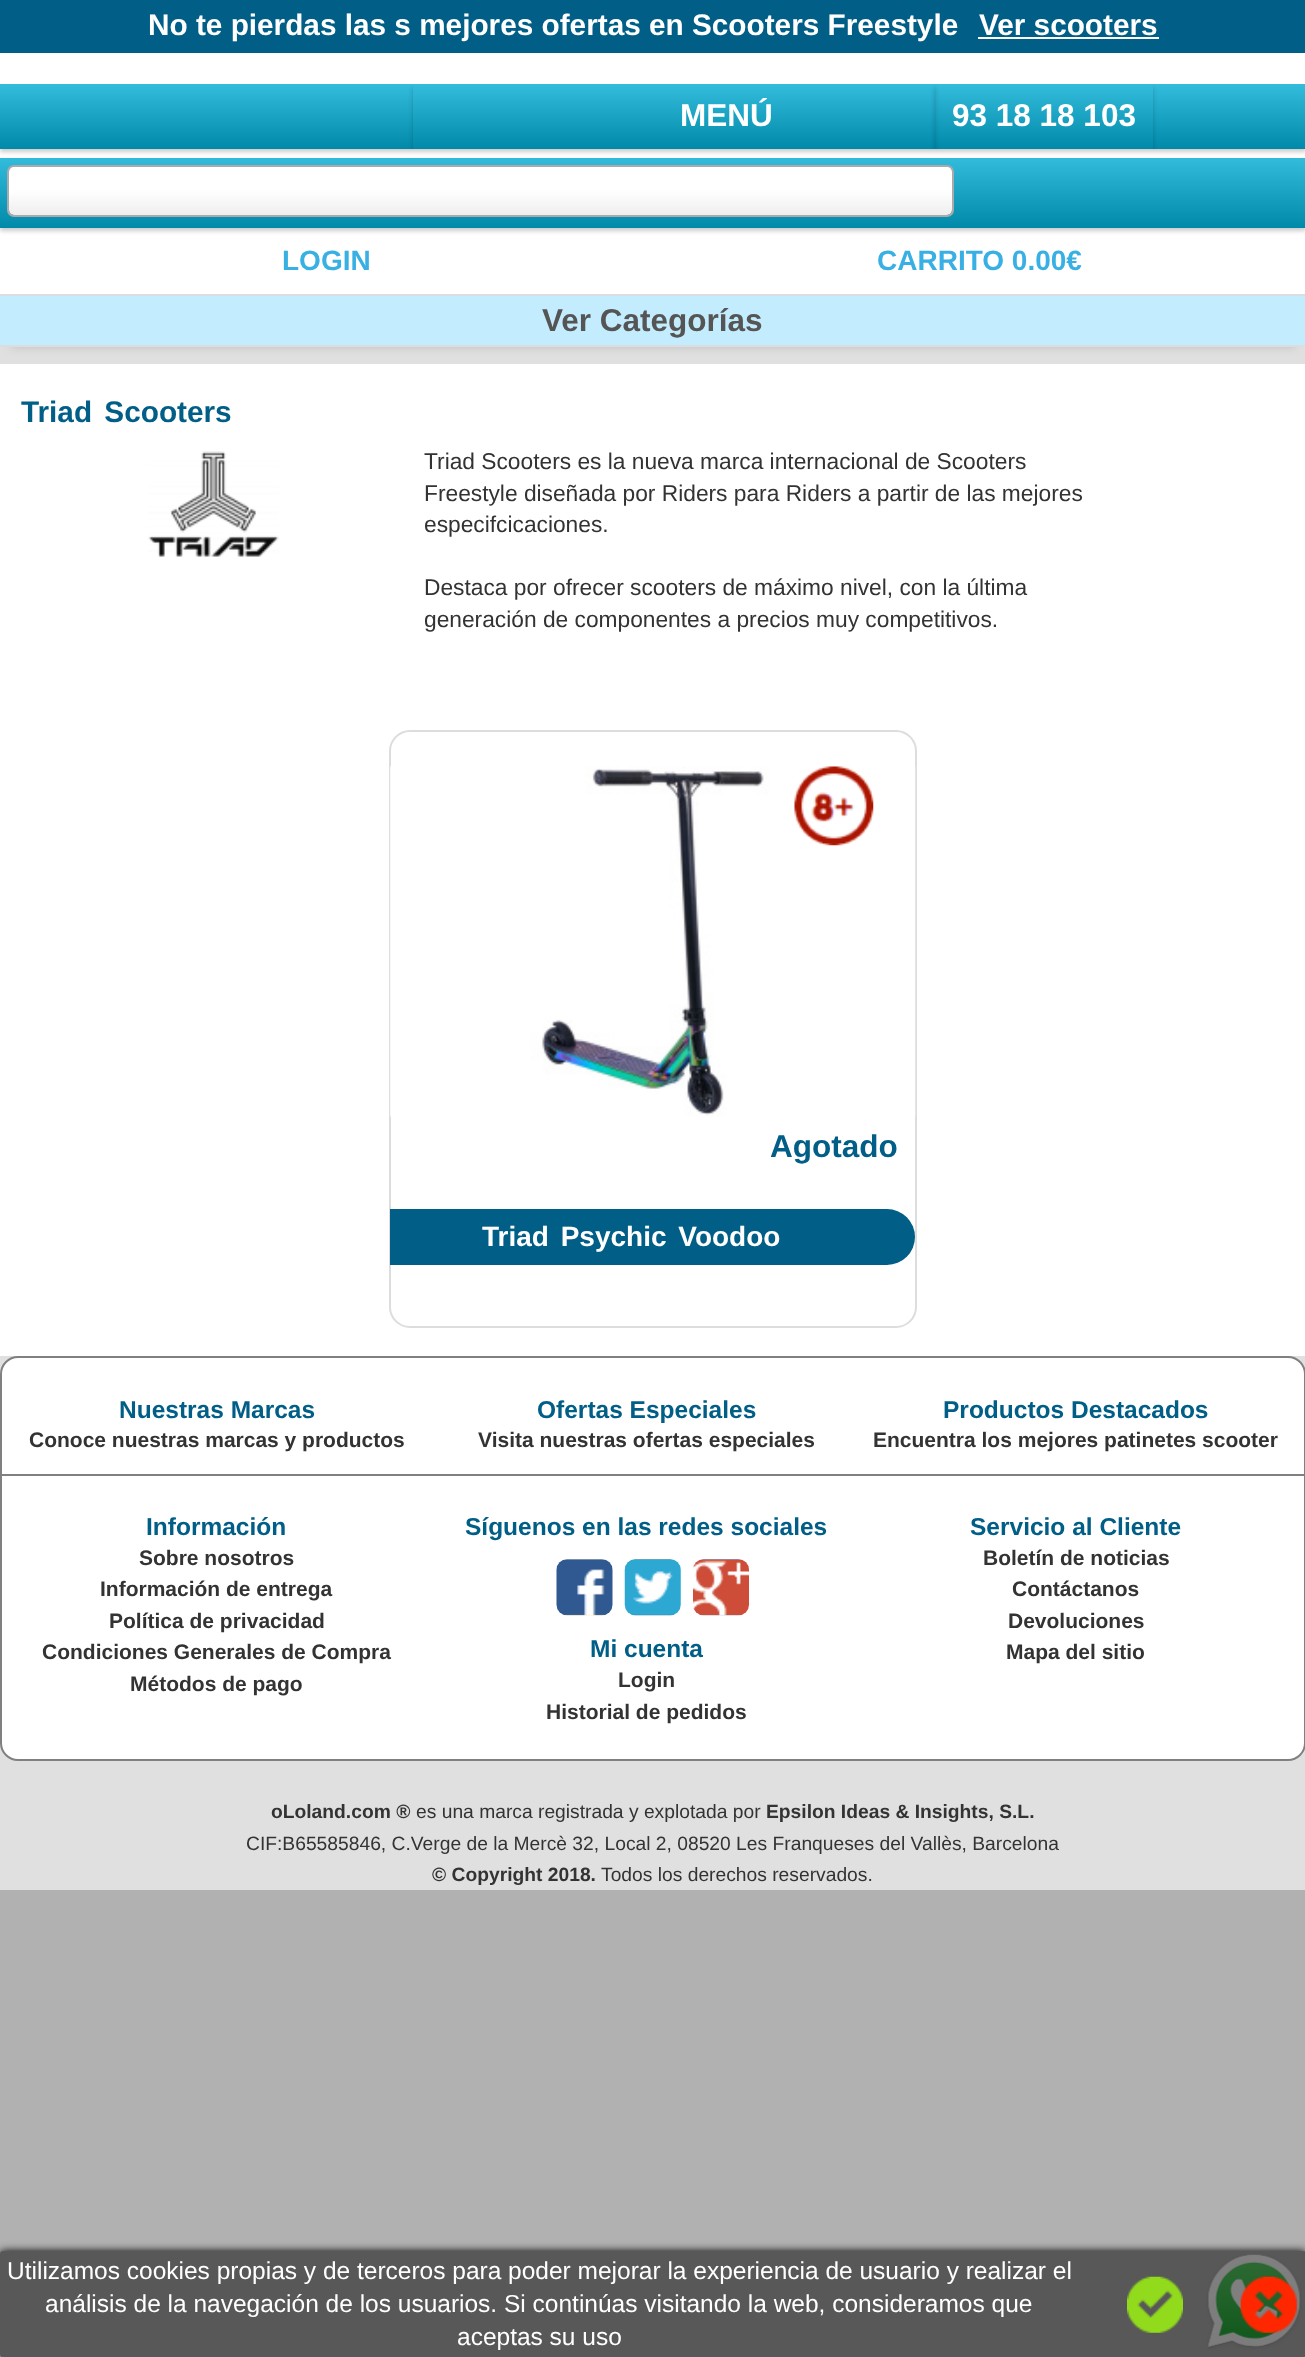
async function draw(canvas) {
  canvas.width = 1305;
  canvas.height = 2357;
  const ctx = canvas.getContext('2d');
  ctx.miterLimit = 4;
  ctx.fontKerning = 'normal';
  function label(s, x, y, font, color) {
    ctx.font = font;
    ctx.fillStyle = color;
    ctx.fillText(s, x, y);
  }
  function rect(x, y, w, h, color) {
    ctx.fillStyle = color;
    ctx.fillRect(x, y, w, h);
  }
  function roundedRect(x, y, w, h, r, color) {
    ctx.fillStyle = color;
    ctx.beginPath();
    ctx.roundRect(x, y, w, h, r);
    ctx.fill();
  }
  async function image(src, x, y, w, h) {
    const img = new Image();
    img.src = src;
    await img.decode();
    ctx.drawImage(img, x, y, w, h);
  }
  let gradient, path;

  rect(0, 0, 1305, 2357, '#b1b1b1');
  rect(0, 0, 1305, 53, '#005e87');
  label('No te pierdas las s mejores ofertas en Scooters Freestyle', 148, 35, 'bold 29.75px Liberation Sans', '#fff');
  label('Ver scooters', 979, 35, 'bold 29.75px Liberation Sans', '#fff');
  rect(978, 37, 181, 2, '#fff');
  rect(0, 347, 1305, 1543, '#e0e0e0');
  rect(0, 53, 1305, 31, '#fff');
  ctx.fillStyle = '#c0bcbc';
  ctx.filter = 'blur(5px)';
  ctx.beginPath();
  ctx.rect(11, 105, 1284, 242);
  ctx.fill();
  ctx.filter = 'none';
  rect(0, 149, 1305, 145, '#fff');
  ctx.fillStyle = '#00000033';
  ctx.filter = 'blur(2px)';
  ctx.beginPath();
  ctx.rect(0, 161, 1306, 70);
  ctx.fill();
  ctx.filter = 'none';
  gradient = ctx.createLinearGradient(653, 157, 653, 228);
  gradient.addColorStop(0, '#33bcdc');
  gradient.addColorStop(1, '#0089a9');
  ctx.fillStyle = gradient;
  ctx.fillRect(0, 158, 1305, 70);
  ctx.fillStyle = '#00000033';
  ctx.filter = 'blur(2px)';
  ctx.beginPath();
  ctx.rect(0, 88, 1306, 64);
  ctx.fill();
  ctx.filter = 'none';
  gradient = ctx.createLinearGradient(653, 84, 653, 149);
  gradient.addColorStop(0, '#33bcdc');
  gradient.addColorStop(1, '#0089a9');
  ctx.fillStyle = gradient;
  ctx.fillRect(0, 84, 1305, 65);
  ctx.save();
  ctx.beginPath();
  ctx.rect(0, 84, 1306, 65);
  ctx.clip();
  path = new Path2D('M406 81H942V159H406ZM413 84H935V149H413Z');
  ctx.clip(path, 'evenodd');
  ctx.fillStyle = '#00000033';
  ctx.filter = 'blur(2px)';
  ctx.beginPath();
  ctx.rect(413, 88, 522, 64);
  ctx.fill();
  ctx.filter = 'none';
  ctx.restore();
  label('MENÚ', 680, 126, 'bold 31.5px Liberation Sans', '#fff');
  ctx.save();
  ctx.beginPath();
  ctx.rect(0, 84, 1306, 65);
  ctx.clip();
  path = new Path2D('M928 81H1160V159H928ZM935 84H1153V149H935Z');
  ctx.clip(path, 'evenodd');
  ctx.fillStyle = '#00000033';
  ctx.filter = 'blur(2px)';
  ctx.beginPath();
  ctx.rect(935, 88, 218, 64);
  ctx.fill();
  ctx.filter = 'none';
  ctx.restore();
  label('93 18 18 103', 952, 126, 'bold 31.5px Liberation Sans', '#fff');
  gradient = ctx.createLinearGradient(9, 215, 9, 166);
  gradient.addColorStop(0, '#eee');
  gradient.addColorStop(0.5, '#fff');
  ctx.fillStyle = gradient;
  ctx.beginPath();
  ctx.roundRect(9, 166, 943, 49, 5);
  ctx.fill();
  ctx.beginPath();
  ctx.roundRect(8, 166, 945, 50, 6);
  ctx.strokeStyle = '#aaa';
  ctx.lineWidth = 2;
  ctx.stroke();
  label('LOGIN', 282, 270, 'bold 28px Liberation Sans', '#38b0e3');
  label('CARRITO 0.00€', 877, 270, 'bold 28px Liberation Sans', '#38b0e3');
  rect(0, 296, 1305, 49, '#c3edff');
  rect(0, 294, 1305, 2, '#dbdee1');
  rect(0, 345, 1305, 2, '#dbdee1');
  label('Ver Categorías', 542, 331, 'bold 31.5px Liberation Sans', '#555');
  rect(0, 364, 1305, 992, '#fff');
  ctx.wordSpacing = '4px';
  label('Triad Scooters', 21, 422, 'bold 29.75px Liberation Sans', '#005e87');
  await image('assets/img1.png', 148, 451, 131, 106);
  ctx.wordSpacing = '0px';
  label('Triad Scooters es la nueva marca internacional de Scooters', 424, 469, '22.75px Liberation Sans', '#333');
  label('Freestyle diseñada por Riders para Riders a partir de las mejores', 424, 501, '22.75px Liberation Sans', '#333');
  label('especifcicaciones.', 424, 532, '22.75px Liberation Sans', '#333');
  label('Destaca por ofrecer scooters de máximo nivel, con la última', 424, 595, '22.75px Liberation Sans', '#333');
  label('generación de componentes a precios muy competitivos.', 424, 627, '22.75px Liberation Sans', '#333');
  ctx.beginPath();
  ctx.roundRect(390, 731, 526, 596, 20);
  ctx.strokeStyle = '#ddd';
  ctx.stroke();
  await image('assets/img2.png', 390, 766, 526, 351);
  await image('assets/img3.png', 794, 766, 80, 80);
  label('Agotado', 770, 1157, 'bold 31.5px Liberation Sans', '#005e87');
  ctx.beginPath();
  ctx.roundRect(390, 1209, 525, 56, [0, 28, 28, 0]);
  ctx.fill();
  ctx.wordSpacing = '4px';
  label('Triad Psychic Voodoo', 482, 1246, 'bold 28px Liberation Sans', '#fff');
  ctx.beginPath();
  ctx.roundRect(1, 1357, 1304, 403, 17);
  ctx.fill();
  ctx.strokeStyle = '#808080';
  ctx.stroke();
  rect(2, 1474, 1302, 2, '#808080');
  ctx.wordSpacing = '0px';
  label('Nuestras Marcas', 119, 1418, 'bold 24.5px Liberation Sans', '#005e87');
  label('Conoce nuestras marcas y productos', 29, 1447, 'bold 21px Liberation Sans', '#333');
  label('Ofertas Especiales', 537, 1418, 'bold 24.5px Liberation Sans', '#005e87');
  label('Visita nuestras ofertas especiales', 478, 1447, 'bold 21px Liberation Sans', '#333');
  label('Productos Destacados', 943, 1418, 'bold 24.5px Liberation Sans', '#005e87');
  label('Encuentra los mejores patinetes scooter', 873, 1447, 'bold 21px Liberation Sans', '#333');
  label('Información', 146, 1535, 'bold 24.5px Liberation Sans', '#005e87');
  label('Sobre nosotros', 139, 1565, 'bold 21px Liberation Sans', '#333');
  label('Información de entrega', 100, 1596, 'bold 21px Liberation Sans', '#333');
  label('Política de privacidad', 109, 1628, 'bold 21px Liberation Sans', '#333');
  label('Condiciones Generales de Compra', 42, 1659, 'bold 21px Liberation Sans', '#333');
  label('Métodos de pago', 130, 1691, 'bold 21px Liberation Sans', '#333');
  label('Síguenos en las redes sociales', 465, 1535, 'bold 24.5px Liberation Sans', '#005e87');
  await image('assets/img4.png', 556, 1559, 57, 57);
  await image('assets/img5.png', 624, 1559, 57, 57);
  await image('assets/img6.png', 693, 1559, 56, 57);
  label('Mi cuenta', 590, 1657, 'bold 24.5px Liberation Sans', '#005e87');
  label('Login', 618, 1687, 'bold 21px Liberation Sans', '#333');
  label('Historial de pedidos', 546, 1719, 'bold 21px Liberation Sans', '#333');
  label('Servicio al Cliente', 970, 1535, 'bold 24.5px Liberation Sans', '#005e87');
  label('Boletín de noticias', 983, 1565, 'bold 21px Liberation Sans', '#333');
  label('Contáctanos', 1012, 1596, 'bold 21px Liberation Sans', '#333');
  label('Devoluciones', 1008, 1628, 'bold 21px Liberation Sans', '#333');
  label('Mapa del sitio', 1006, 1659, 'bold 21px Liberation Sans', '#333');
  label('oLoland.com ®', 271, 1818, 'bold 19.25px Liberation Sans', '#333');
  label('es una marca registrada y explotada por', 416, 1818, '19.25px Liberation Sans', '#333');
  label('Epsilon Ideas & Insights, S.L.', 766, 1818, 'bold 19.25px Liberation Sans', '#333');
  label('CIF:B65585846, C.Verge de la Mercè 32, Local 2, 08520 Les Franqueses del Vallès, Barcelona', 246, 1850, '19.25px Liberation Sans', '#333');
  label('© Copyright 2018.', 432, 1881, 'bold 19.25px Liberation Sans', '#333');
  label('Todos los derechos reservados.', 601, 1881, '19.25px Liberation Sans', '#333');
  await image('assets/img9.png', 1206, 2254, 96, 96);
  ctx.save();
  path = new Path2D('M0 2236H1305V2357H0ZM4 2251H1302C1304 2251 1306 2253 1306 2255V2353C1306 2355 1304 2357 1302 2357H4C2 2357 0 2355 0 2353V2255C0 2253 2 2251 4 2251Z');
  ctx.clip(path, 'evenodd');
  ctx.fillStyle = '#000';
  ctx.filter = 'blur(4.5px)';
  ctx.beginPath();
  ctx.roundRect(0, 2251, 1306, 106, 4);
  ctx.fill();
  ctx.filter = 'none';
  ctx.restore();
  roundedRect(0, 2251, 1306, 106, 4, '#00000080');
  label('Utilizamos cookies propias y de terceros para poder mejorar la experiencia de usuario y realizar el', 7, 2279, '24.5px Liberation Sans', '#fff');
  label('análisis de la navegación de los usuarios. Si continúas visitando la web, consideramos que', 45, 2312, '24.5px Liberation Sans', '#fff');
  label('aceptas su uso', 457, 2345, '24.5px Liberation Sans', '#fff');
  await image('assets/img7.png', 1127, 2276, 56, 57);
  await image('assets/img8.png', 1240, 2276, 57, 57);
}

draw(document.querySelector('canvas'));
